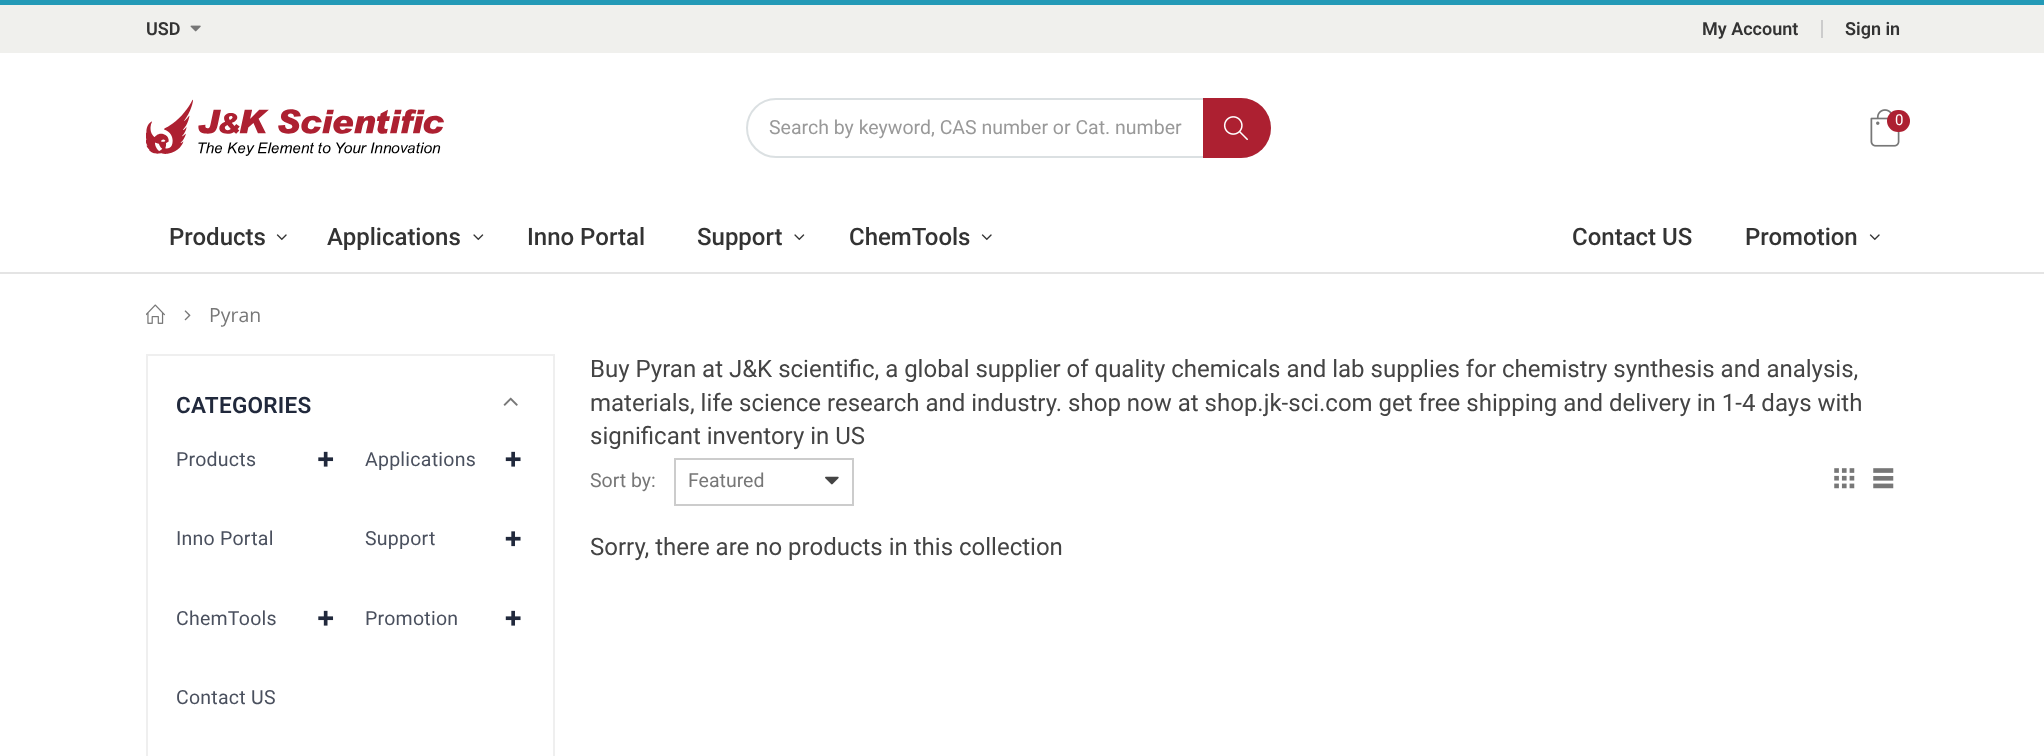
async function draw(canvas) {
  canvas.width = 2044;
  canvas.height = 756;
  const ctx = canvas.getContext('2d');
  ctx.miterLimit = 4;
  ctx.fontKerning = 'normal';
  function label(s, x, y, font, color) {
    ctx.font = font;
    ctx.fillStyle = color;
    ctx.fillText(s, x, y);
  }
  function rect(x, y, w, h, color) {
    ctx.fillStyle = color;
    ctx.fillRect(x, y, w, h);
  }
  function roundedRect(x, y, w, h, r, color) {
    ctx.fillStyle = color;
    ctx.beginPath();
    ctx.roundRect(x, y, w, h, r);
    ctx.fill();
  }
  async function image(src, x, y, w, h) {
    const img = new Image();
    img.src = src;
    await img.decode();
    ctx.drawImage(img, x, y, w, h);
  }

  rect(0, 0, 2044, 756, '#fff');
  rect(0, 0, 2044, 5, '#239ab7');
  rect(0, 272, 2044, 2, '#e4e4e4');
  rect(0, 5, 2044, 48, '#f0f0ed');
  label('USD', 146, 35, '600 18px Roboto', '#333');
  await image('assets/img1.png', 190, 25, 11, 7);
  label('My Account', 1702, 35, '600 18px Roboto', '#333');
  rect(1821, 20, 2, 18, '#ccc');
  label('Sign in', 1845, 35, '600 18px Roboto', '#333');
  await image('assets/img2.png', 146, 99, 298, 57);
  ctx.beginPath();
  ctx.roundRect(747, 99, 523, 58, 29);
  ctx.strokeStyle = '#dbe0e2';
  ctx.lineWidth = 2;
  ctx.stroke();
  label('Search by keyword, CAS number or Cat. number', 769, 134, '19.5px Roboto', '#999');
  ctx.fillStyle = '#ad2031';
  ctx.beginPath();
  ctx.roundRect(1203, 98, 68, 60, [0, 30, 30, 0]);
  ctx.fill();
  await image('assets/img3.png', 1223, 116, 25, 25);
  await image('assets/img4.png', 1870, 109, 30, 38);
  roundedRect(1887, 110, 23, 22, 11, '#ad2031');
  label('0', 1895, 125, '15px Roboto', '#fff');
  label('Products', 169, 245, '500 24px Roboto', '#333');
  await image('assets/img5.png', 276, 234, 11, 7);
  label('Applications', 327, 245, '500 24px Roboto', '#333');
  await image('assets/img6.png', 473, 234, 11, 7);
  label('Inno Portal', 527, 245, '500 24px Roboto', '#333');
  label('Support', 697, 245, '500 24px Roboto', '#333');
  await image('assets/img6.png', 794, 234, 11, 7);
  label('ChemTools', 849, 245, '500 24px Roboto', '#333');
  await image('assets/img5.png', 981, 234, 11, 7);
  label('Contact US', 1572, 245, '500 24px Roboto', '#333');
  label('Promotion', 1745, 245, '500 24px Roboto', '#333');
  await image('assets/img5.png', 1869, 234, 11, 7);
  await image('assets/img7.png', 146, 304, 19, 20);
  await image('assets/img8.png', 184, 310, 7, 11);
  label('Pyran', 209, 322, '19.5px Open Sans', '#777');
  ctx.strokeStyle = '#efefef';
  ctx.strokeRect(147, 355, 407, 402);
  ctx.letterSpacing = '0.25px';
  label('CATEGORIES', 176, 413, '600 22.5px Roboto', '#21293c');
  await image('assets/img9.png', 503, 397, 15, 9);
  label('Products', 176, 466, '19.5px Roboto', '#4a505e');
  await image('assets/img10.png', 318, 451, 16, 16);
  label('Applications', 365, 466, '19.5px Roboto', '#4a505e');
  await image('assets/img11.png', 505, 451, 16, 16);
  label('Inno Portal', 176, 545, '19.5px Roboto', '#4a505e');
  label('Support', 365, 545, '19.5px Roboto', '#4a505e');
  await image('assets/img12.png', 505, 531, 16, 16);
  label('ChemTools', 176, 625, '19.5px Roboto', '#4a505e');
  await image('assets/img10.png', 318, 610, 16, 16);
  label('Promotion', 365, 625, '19.5px Roboto', '#4a505e');
  await image('assets/img11.png', 505, 610, 16, 16);
  label('Contact US', 176, 704, '19.5px Roboto', '#4a505e');
  ctx.letterSpacing = '0px';
  label('Buy Pyran at J&K scientific, a global supplier of quality chemicals and lab supplies for chemistry synthesis and analysis,', 590, 377, '24px Roboto', '#444');
  label('materials, life science research and industry. shop now at shop.jk-sci.com get free shipping and delivery in 1-4 days with', 590, 411, '24px Roboto', '#444');
  label('significant inventory in US', 590, 444, '24px Roboto', '#444');
  label('Sort by:', 590, 487, '19.5px Roboto', '#777');
  ctx.strokeStyle = '#ccc';
  ctx.strokeRect(675, 459, 178, 46);
  label('Featured', 688, 487, '19.5px Roboto', '#777');
  await image('assets/img13.png', 825, 476, 14, 9);
  await image('assets/img14.png', 1834, 468, 21, 21);
  await image('assets/img15.png', 1873, 468, 21, 21);
  label('Sorry, there are no products in this collection', 590, 555, '24px Roboto', '#444');
}

draw(document.querySelector('canvas'));
